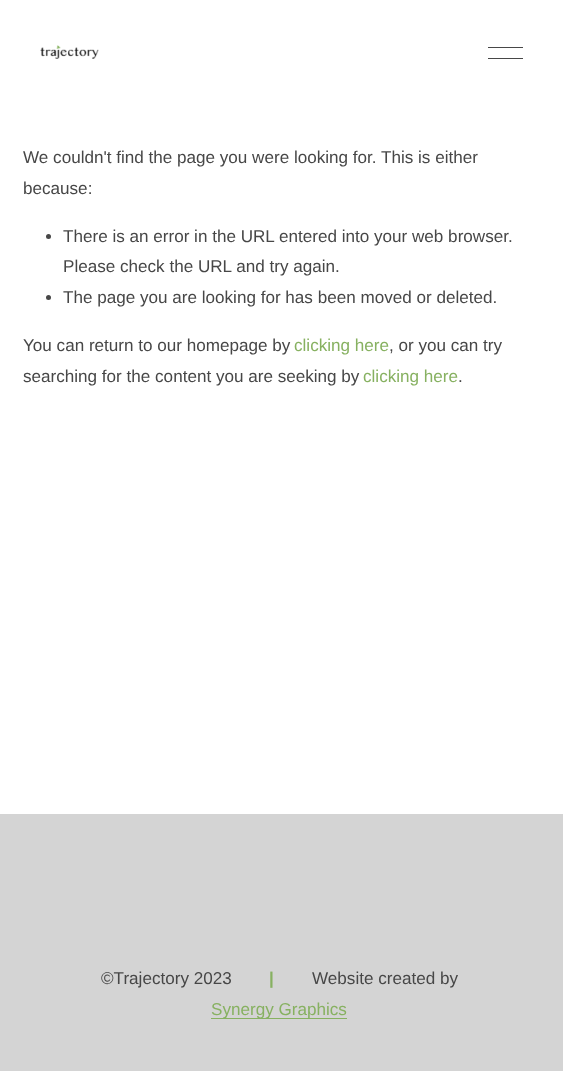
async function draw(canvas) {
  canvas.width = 563;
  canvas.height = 1071;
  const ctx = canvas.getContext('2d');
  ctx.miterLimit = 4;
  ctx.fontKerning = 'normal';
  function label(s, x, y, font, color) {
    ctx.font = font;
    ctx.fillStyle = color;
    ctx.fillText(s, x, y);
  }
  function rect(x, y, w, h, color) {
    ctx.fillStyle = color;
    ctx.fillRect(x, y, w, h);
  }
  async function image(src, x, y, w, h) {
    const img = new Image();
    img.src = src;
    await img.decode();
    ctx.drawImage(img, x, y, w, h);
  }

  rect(0, 0, 563, 1071, '#fff');
  await image('assets/img1.png', 40, 45, 59, 14);
  rect(488, 47, 35, 1, '#474747');
  rect(488, 58, 35, 1, '#474747');
  label('We couldn\'t find the page you were looking for. This is either', 23, 163, '17.1px Liberation Sans', '#474747');
  label('because:', 23, 194, '17.1px Liberation Sans', '#474747');
  ctx.beginPath();
  ctx.arc(48.5, 236.5, 2.5, 0, 2 * Math.PI);
  ctx.fill();
  label('There is an error in the URL entered into your web browser.', 63, 242, '17.1px Liberation Sans', '#474747');
  label('Please check the URL and try again.', 63, 272, '17.1px Liberation Sans', '#474747');
  ctx.beginPath();
  ctx.arc(48.5, 297.5, 2.5, 0, 2 * Math.PI);
  ctx.fill();
  label('The page you are looking for has been moved or deleted.', 63, 303, '17.1px Liberation Sans', '#474747');
  label('You can return to our homepage by', 23, 351, '17.1px Liberation Sans', '#474747');
  label('clicking here', 294, 351, '17.1px Liberation Sans', '#87b161');
  label(', or you can try', 389, 351, '17.1px Liberation Sans', '#474747');
  label('searching for the content you are seeking by', 23, 382, '17.1px Liberation Sans', '#474747');
  label('clicking here', 363, 382, '17.1px Liberation Sans', '#87b161');
  label('.', 458, 382, '17.1px Liberation Sans', '#474747');
  rect(0, 814, 563, 257, '#d4d4d4');
  label('©Trajectory 2023', 101, 984, '17.1px Liberation Sans', '#474747');
  label('|', 269, 984, 'bold 17.1px Liberation Sans', '#87b161');
  label('Website created by', 312, 984, '17.1px Liberation Sans', '#474747');
  rect(211, 1018, 136, 1, '#87b161');
  label('Synergy Graphics', 211, 1015, '17.1px Liberation Sans', '#87b161');
}

draw(document.querySelector('canvas'));
